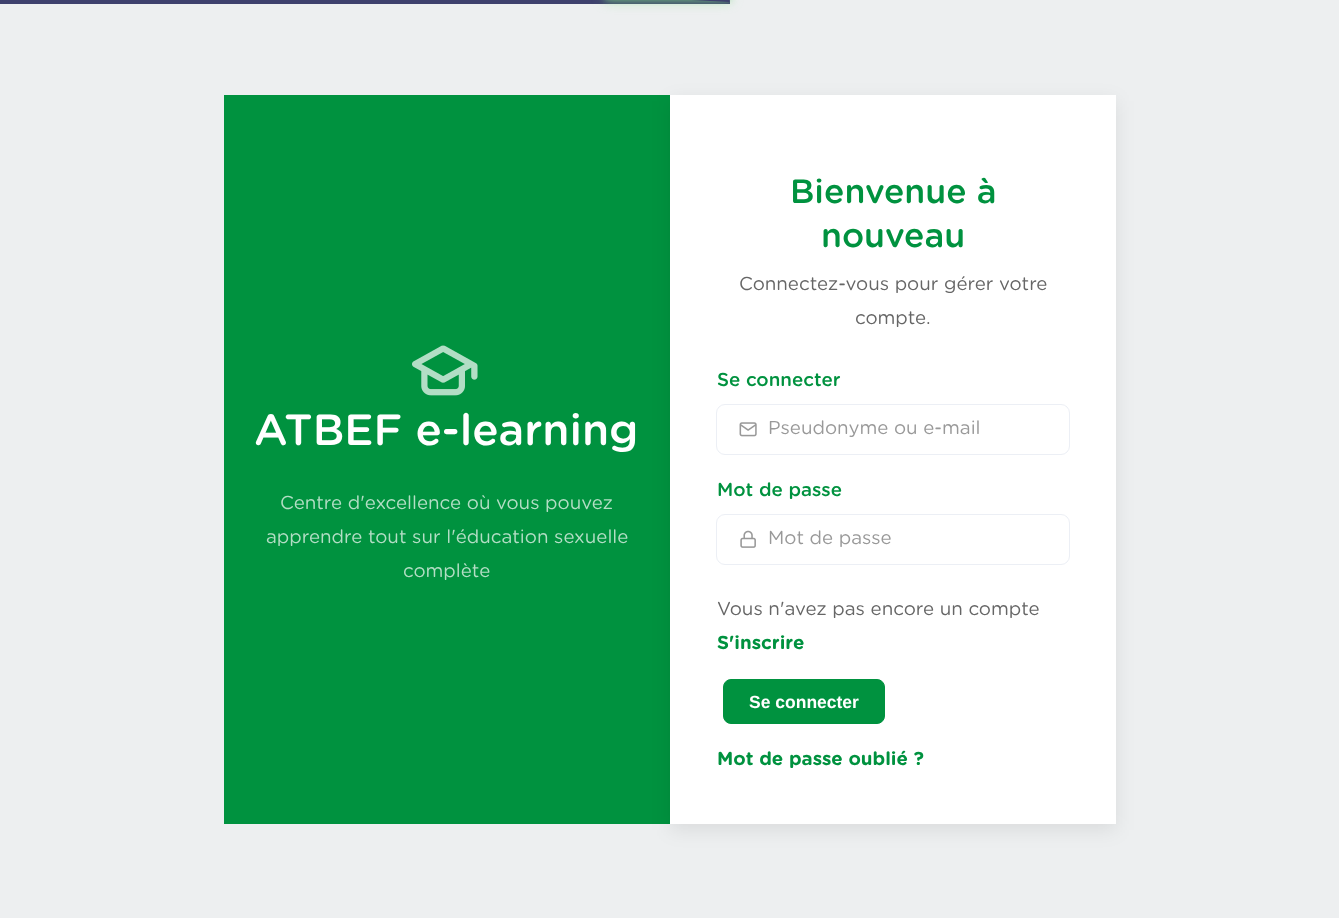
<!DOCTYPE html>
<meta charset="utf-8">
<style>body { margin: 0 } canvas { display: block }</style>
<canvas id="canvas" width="1339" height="918"></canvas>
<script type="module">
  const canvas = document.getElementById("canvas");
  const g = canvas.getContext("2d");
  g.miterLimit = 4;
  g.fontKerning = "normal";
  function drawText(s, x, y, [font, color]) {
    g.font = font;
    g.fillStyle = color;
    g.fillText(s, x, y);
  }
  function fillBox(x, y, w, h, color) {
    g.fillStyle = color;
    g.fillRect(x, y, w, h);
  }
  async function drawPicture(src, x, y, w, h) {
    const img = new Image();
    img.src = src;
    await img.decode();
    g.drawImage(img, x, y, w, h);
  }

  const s1 = ["500 43.75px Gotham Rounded", "#FFFFFF"];
  const s2 = ["18.75px Gotham Rounded", "#B3DEC5"];
  const s3 = ["500 33.75px Gotham Rounded", "#00923F"];
  const s4 = ["18.75px Gotham Rounded", "#666666"];
  const s5 = ["500 18.75px Gotham Rounded", "#00923F"];
  const s6 = ["18.75px Gotham Rounded", "#999999"];
  const s7 = ["bold 18.75px Gotham Rounded", "#00923F"];
  const s8 = ["bold 17.5px Liberation Sans", "#FFFFFF"];

  fillBox(0, 0, 1339, 918, "#EDEFF0");
  fillBox(0, 0, 730, 4, "#3E416D");
  g.save();
  g.beginPath();
  g.moveTo(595, 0);
  g.lineTo(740, 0);
  g.lineTo(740, 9);
  g.lineTo(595, 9);
  g.closePath();
  g.moveTo(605, -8.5);
  g.lineTo(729.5, -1.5);
  g.lineTo(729.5, 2);
  g.lineTo(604.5, -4.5);
  g.closePath();
  g.clip("evenodd");
  g.fillStyle = "#8BCA90";
  g.filter = "blur(3px)";
  g.beginPath();
  g.rect(605, -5, 125, 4);
  g.fill();
  g.filter = "none";
  g.restore();
  g.save();
  g.beginPath();
  g.moveTo(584, 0);
  g.lineTo(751, 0);
  g.lineTo(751, 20);
  g.lineTo(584, 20);
  g.closePath();
  g.moveTo(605, -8.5);
  g.lineTo(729.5, -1.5);
  g.lineTo(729.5, 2);
  g.lineTo(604.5, -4.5);
  g.closePath();
  g.clip("evenodd");
  g.fillStyle = "#6DE877";
  g.filter = "blur(6.5px)";
  g.beginPath();
  g.rect(605, -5, 125, 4);
  g.fill();
  g.filter = "none";
  g.restore();
  fillBox(224, 95, 446, 729, "#00923F");
  await drawPicture("pic1.png", 412, 345, 66, 51);
  drawText("ATBEF e-learning", 254, 445, s1);
  drawText("Centre d'excellence où vous pouvez", 280, 509, s2);
  drawText("apprendre tout sur l'éducation sexuelle", 266, 543, s2);
  drawText("complète", 403, 577, s2);
  g.fillStyle = "rgba(0, 0, 0, 0.08)";
  g.filter = "blur(9.5px)";
  g.beginPath();
  g.rect(670, 101, 446, 729);
  g.fill();
  g.filter = "none";
  fillBox(670, 95, 446, 729, "#FFFFFF");
  drawText("Bienvenue à", 790, 203, s3);
  drawText("nouveau", 821, 247, s3);
  drawText("Connectez-vous pour gérer votre", 739, 290, s4);
  drawText("compte.", 855, 324, s4);
  drawText("Se connecter", 717, 386, s5);
  g.beginPath();
  g.roundRect(716.5, 404.5, 353, 50, 8.5);
  g.strokeStyle = "#ECEFF5";
  g.stroke();
  await drawPicture("pic2.png", 739, 422, 18, 15);
  drawText("Pseudonyme ou e-mail", 768, 434, s6);
  drawText("Mot de passe", 717, 496, s5);
  g.beginPath();
  g.roundRect(716.5, 514.5, 353, 50, 8.5);
  g.stroke();
  await drawPicture("pic3.png", 740, 530, 16, 18);
  drawText("Mot de passe", 768, 544, s6);
  drawText("Vous n'avez pas encore un compte", 717, 615, s4);
  drawText("S'inscrire", 717, 649, s7);
  g.beginPath();
  g.roundRect(723.5, 679.5, 161, 44, 7.5);
  g.fill();
  g.strokeStyle = "#00923F";
  g.stroke();
  drawText("Se connecter", 749, 708, s8);
  drawText("Mot de passe oublié ?", 717, 765, s7);
</script>
